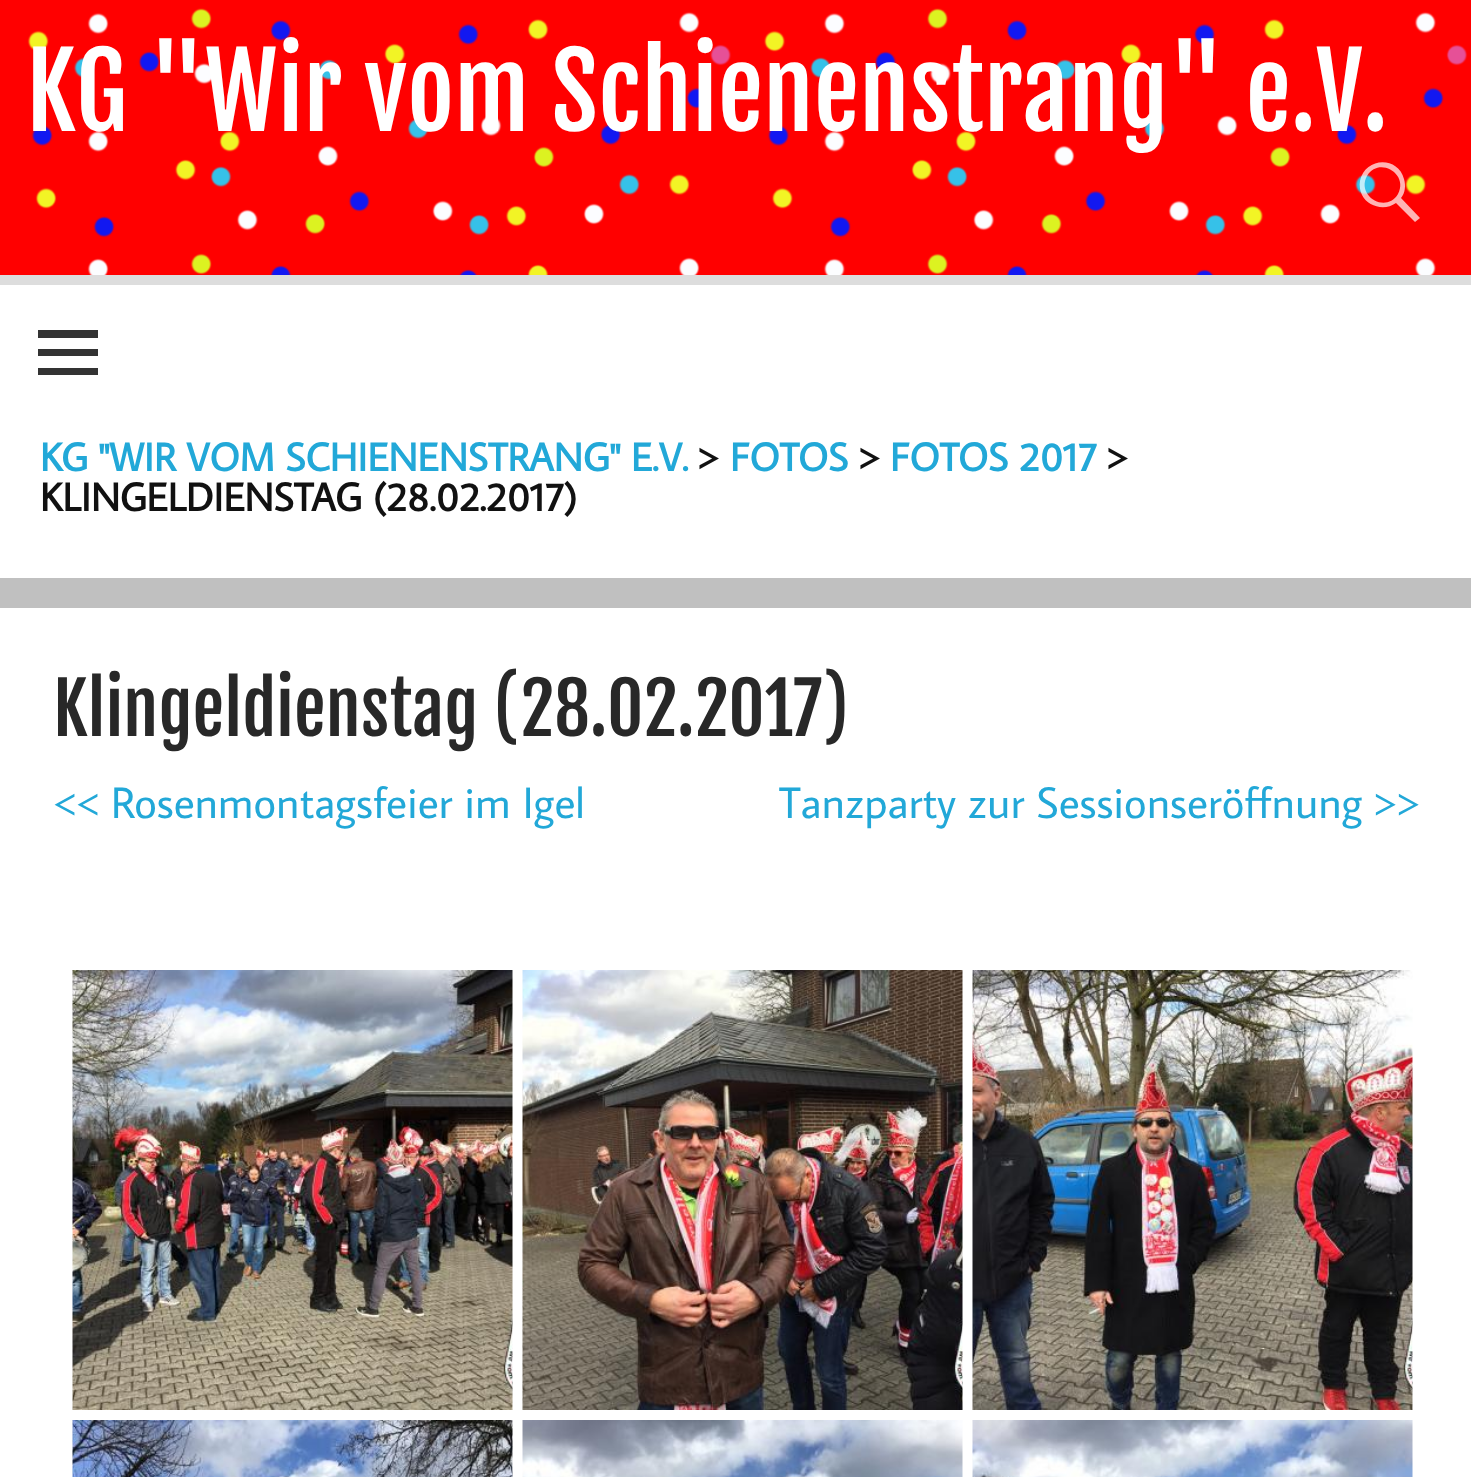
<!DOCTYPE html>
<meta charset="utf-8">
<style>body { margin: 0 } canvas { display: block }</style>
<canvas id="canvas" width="1471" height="1477"></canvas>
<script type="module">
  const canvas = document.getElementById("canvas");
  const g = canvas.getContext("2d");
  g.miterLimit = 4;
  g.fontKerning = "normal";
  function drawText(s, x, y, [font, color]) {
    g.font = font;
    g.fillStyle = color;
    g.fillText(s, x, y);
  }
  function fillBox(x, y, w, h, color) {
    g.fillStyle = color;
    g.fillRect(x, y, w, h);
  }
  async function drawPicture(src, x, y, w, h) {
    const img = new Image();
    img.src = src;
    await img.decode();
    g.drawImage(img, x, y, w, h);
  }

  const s1 = ["101.25px Fjalla One", "#FFFFFF"];
  const s2 = ["bold 39.6px Average Sans", "#22A8D8"];
  const s3 = ["bold 39.6px Average Sans", "#111111"];
  const s4 = ["70.4px Fjalla One", "#282828"];
  const s5 = ["44px Average Sans", "#22A8D8"];

  fillBox(0, 0, 1471, 1477, "#C0C0C0");
  fillBox(0, 0, 1471, 275, "#FF0000");
  await drawPicture("pic1.png", 27, 8, 1441, 267);
  drawText("KG \"Wir vom Schienenstrang\" e.V.", 26, 131, s1);
  g.fillStyle = "rgba(255, 255, 255, 0.7)";
  g.beginPath();
  g.moveTo(1420, 218);
  g.lineTo(1415, 222);
  g.lineTo(1396, 203);
  g.bezierCurveTo(1385, 211, 1368, 207, 1362, 195);
  g.bezierCurveTo(1360, 191, 1359, 185, 1360, 181);
  g.bezierCurveTo(1365, 157, 1398, 156, 1404, 179);
  g.bezierCurveTo(1406, 186, 1405, 193, 1401, 198);
  g.closePath();
  g.moveTo(1367, 176);
  g.bezierCurveTo(1356, 196, 1386, 214, 1398, 194);
  g.bezierCurveTo(1409, 174, 1379, 156, 1367, 176);
  g.closePath();
  g.fill();
  fillBox(0, 285, 1471, 293, "#FFFFFF");
  fillBox(0, 275, 1471, 10, "#DDDDDD");
  g.fillStyle = "#333333";
  g.beginPath();
  g.moveTo(38, 375);
  g.lineTo(38, 368);
  g.lineTo(98, 368);
  g.lineTo(98, 375);
  g.closePath();
  g.moveTo(38, 330);
  g.lineTo(98, 330);
  g.lineTo(98, 338);
  g.lineTo(38, 338);
  g.closePath();
  g.moveTo(38, 356);
  g.lineTo(38, 349);
  g.lineTo(98, 349);
  g.lineTo(98, 356);
  g.closePath();
  g.fill();
  drawText("KG \"WIR VOM SCHIENENSTRANG\" E.V.", 40, 471, s2);
  drawText(">", 698, 471, s3);
  drawText("FOTOS", 730, 471, s2);
  drawText(">", 859, 471, s3);
  drawText("FOTOS 2017", 890, 471, s2);
  drawText(">", 1107, 471, s3);
  drawText("KLINGELDIENSTAG (28.02.2017)", 40, 511, s3);
  fillBox(0, 608, 1471, 869, "#FFFFFF");
  drawText("Klingeldienstag (28.02.2017)", 53, 736, s4);
  drawText("<< Rosenmontagsfeier im Igel", 53, 818, s5);
  drawText("Tanzparty zur Sessionseröffnung >>", 779, 818, s5);
  await drawPicture("pic2.png", 72, 970, 441, 440);
  await drawPicture("pic3.png", 522, 970, 441, 440);
  await drawPicture("pic4.png", 972, 970, 441, 440);
  await drawPicture("pic5.png", 72, 1420, 441, 57);
  await drawPicture("pic6.png", 522, 1420, 441, 57);
  await drawPicture("pic7.png", 972, 1420, 441, 57);
</script>
